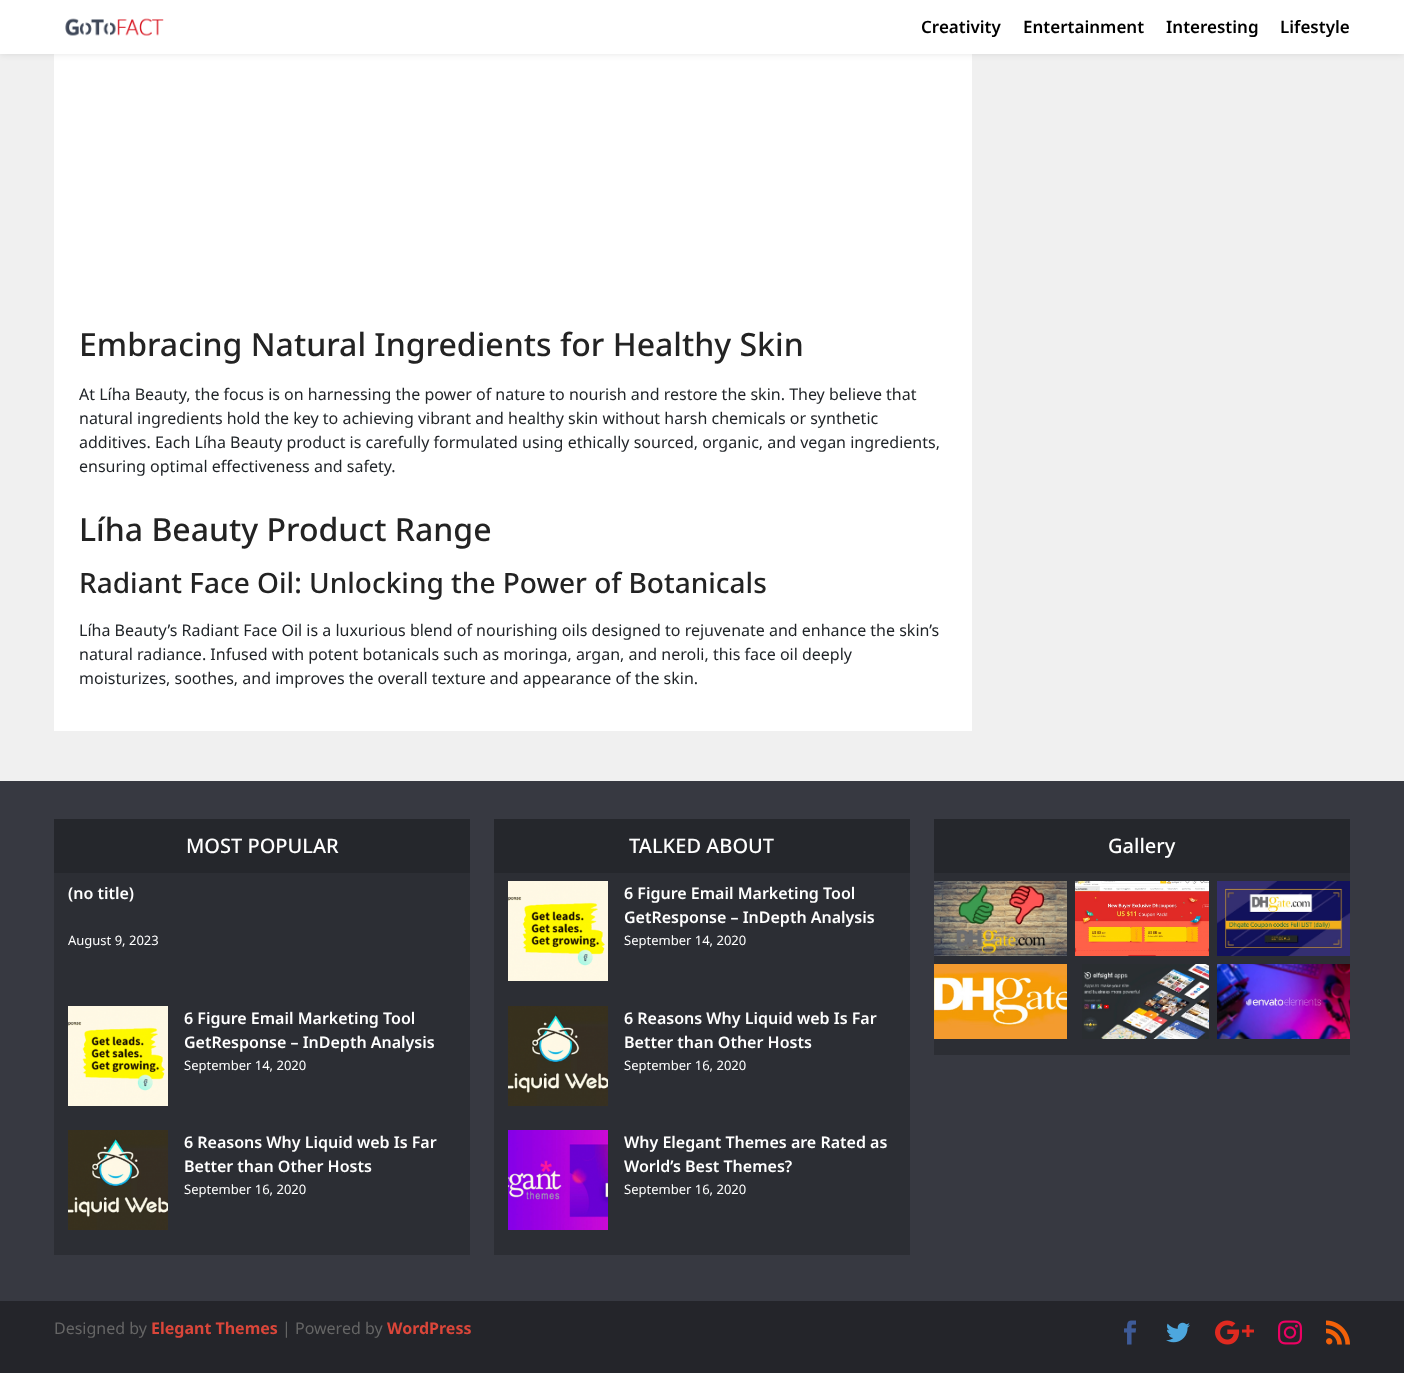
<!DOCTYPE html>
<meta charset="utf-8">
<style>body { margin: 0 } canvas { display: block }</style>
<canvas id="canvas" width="1404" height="1373"></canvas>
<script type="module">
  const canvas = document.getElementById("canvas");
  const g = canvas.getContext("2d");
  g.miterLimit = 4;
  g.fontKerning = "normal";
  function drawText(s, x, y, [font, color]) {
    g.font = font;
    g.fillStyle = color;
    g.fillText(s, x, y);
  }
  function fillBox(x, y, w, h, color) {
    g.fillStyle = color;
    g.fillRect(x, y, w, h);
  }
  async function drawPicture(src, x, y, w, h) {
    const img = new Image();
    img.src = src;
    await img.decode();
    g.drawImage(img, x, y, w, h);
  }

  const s1 = ["600 17px Noto Sans", "#000000"];
  const s2 = ["500 32px Noto Sans", "#232323"];
  const s3 = ["16px Noto Sans", "#212529"];
  const s4 = ["500 28px Noto Sans", "#232323"];
  const s5 = ["500 20px Noto Sans", "#FFFFFF"];
  const s6 = ["600 16px Noto Sans", "#FFFFFF"];
  const s7 = ["13px Noto Sans", "#FFFFFF"];
  const s8 = ["16px Noto Sans", "#666666"];
  const s9 = ["bold 16px Noto Sans", "#DA463A"];

  fillBox(0, 0, 1404, 1373, "#F0F0F0");
  fillBox(54, 54, 918, 677, "#FFFFFF");
  g.fillStyle = "rgba(0, 0, 0, 0.1)";
  g.filter = "blur(3.5px)";
  g.beginPath();
  g.rect(0, 0, 1404, 54);
  g.fill();
  g.filter = "none";
  fillBox(0, 0, 1404, 54, "#FFFFFF");
  await drawPicture("pic1.png", 65, 18, 99, 18);
  drawText("Creativity", 921, 33, s1);
  drawText("Entertainment", 1023, 33, s1);
  drawText("Interesting", 1166, 33, s1);
  drawText("Lifestyle", 1280, 33, s1);
  drawText("Embracing Natural Ingredients for Healthy Skin", 79, 356, s2);
  drawText("At Líha Beauty, the focus is on harnessing the power of nature to nourish and restore the skin. They believe that", 79, 400, s3);
  drawText("natural ingredients hold the key to achieving vibrant and healthy skin without harsh chemicals or synthetic", 79, 424, s3);
  drawText("additives. Each Líha Beauty product is carefully formulated using ethically sourced, organic, and vegan ingredients,", 79, 448, s3);
  drawText("ensuring optimal effectiveness and safety.", 79, 472, s3);
  drawText("Líha Beauty Product Range", 79, 541, s2);
  drawText("Radiant Face Oil: Unlocking the Power of Botanicals", 79, 593, s4);
  drawText("Líha Beauty’s Radiant Face Oil is a luxurious blend of nourishing oils designed to rejuvenate and enhance the skin’s", 79, 636, s3);
  drawText("natural radiance. Infused with potent botanicals such as moringa, argan, and neroli, this face oil deeply", 79, 660, s3);
  drawText("moisturizes, soothes, and improves the overall texture and appearance of the skin.", 79, 684, s3);
  fillBox(0, 781, 1404, 520, "#373941");
  fillBox(54, 873, 416, 382, "#2C2E34");
  fillBox(54, 819, 416, 54, "#25272C");
  drawText("MOST POPULAR", 186, 853, s5);
  drawText("(no title)", 68, 899, s6);
  drawText("August 9, 2023", 68, 945, s7);
  await drawPicture("pic2.png", 68, 1006, 100, 100);
  drawText("6 Figure Email Marketing Tool", 184, 1024, s6);
  drawText("GetResponse – InDepth Analysis", 184, 1048, s6);
  drawText("September 14, 2020", 184, 1070, s7);
  await drawPicture("pic3.png", 68, 1130, 100, 100);
  drawText("6 Reasons Why Liquid web Is Far", 184, 1148, s6);
  drawText("Better than Other Hosts", 184, 1172, s6);
  drawText("September 16, 2020", 184, 1194, s7);
  fillBox(494, 873, 416, 382, "#2C2E34");
  fillBox(494, 819, 416, 54, "#25272C");
  drawText("TALKED ABOUT", 629, 853, s5);
  await drawPicture("pic2.png", 508, 881, 100, 100);
  drawText("6 Figure Email Marketing Tool", 624, 899, s6);
  drawText("GetResponse – InDepth Analysis", 624, 923, s6);
  drawText("September 14, 2020", 624, 945, s7);
  await drawPicture("pic3.png", 508, 1006, 100, 100);
  drawText("6 Reasons Why Liquid web Is Far", 624, 1024, s6);
  drawText("Better than Other Hosts", 624, 1048, s6);
  drawText("September 16, 2020", 624, 1070, s7);
  await drawPicture("pic4.png", 508, 1130, 100, 100);
  drawText("Why Elegant Themes are Rated as", 624, 1148, s6);
  drawText("World’s Best Themes?", 624, 1172, s6);
  drawText("September 16, 2020", 624, 1194, s7);
  fillBox(934, 873, 416, 182, "#2C2E34");
  fillBox(934, 819, 416, 54, "#25272C");
  drawText("Gallery", 1108, 853, s5);
  await drawPicture("pic5.png", 934, 881, 133, 75);
  await drawPicture("pic6.png", 1075, 881, 134, 75);
  await drawPicture("pic7.png", 1217, 881, 133, 75);
  await drawPicture("pic8.png", 934, 964, 133, 75);
  await drawPicture("pic9.png", 1082, 964, 127, 75);
  await drawPicture("pic10.png", 1217, 964, 133, 75);
  fillBox(0, 1301, 1404, 72, "#24252A");
  drawText("Designed by", 54, 1334, s8);
  drawText("Elegant Themes", 151, 1334, s9);
  drawText("| Powered by", 282, 1334, s8);
  drawText("WordPress", 387, 1334, s9);
  await drawPicture("pic11.png", 1124, 1320, 12, 25);
  await drawPicture("pic12.png", 1166, 1322, 24, 21);
  await drawPicture("pic13.png", 1215, 1320, 39, 25);
  await drawPicture("pic14.png", 1278, 1320, 24, 25);
  await drawPicture("pic15.png", 1326, 1320, 24, 25);
</script>
